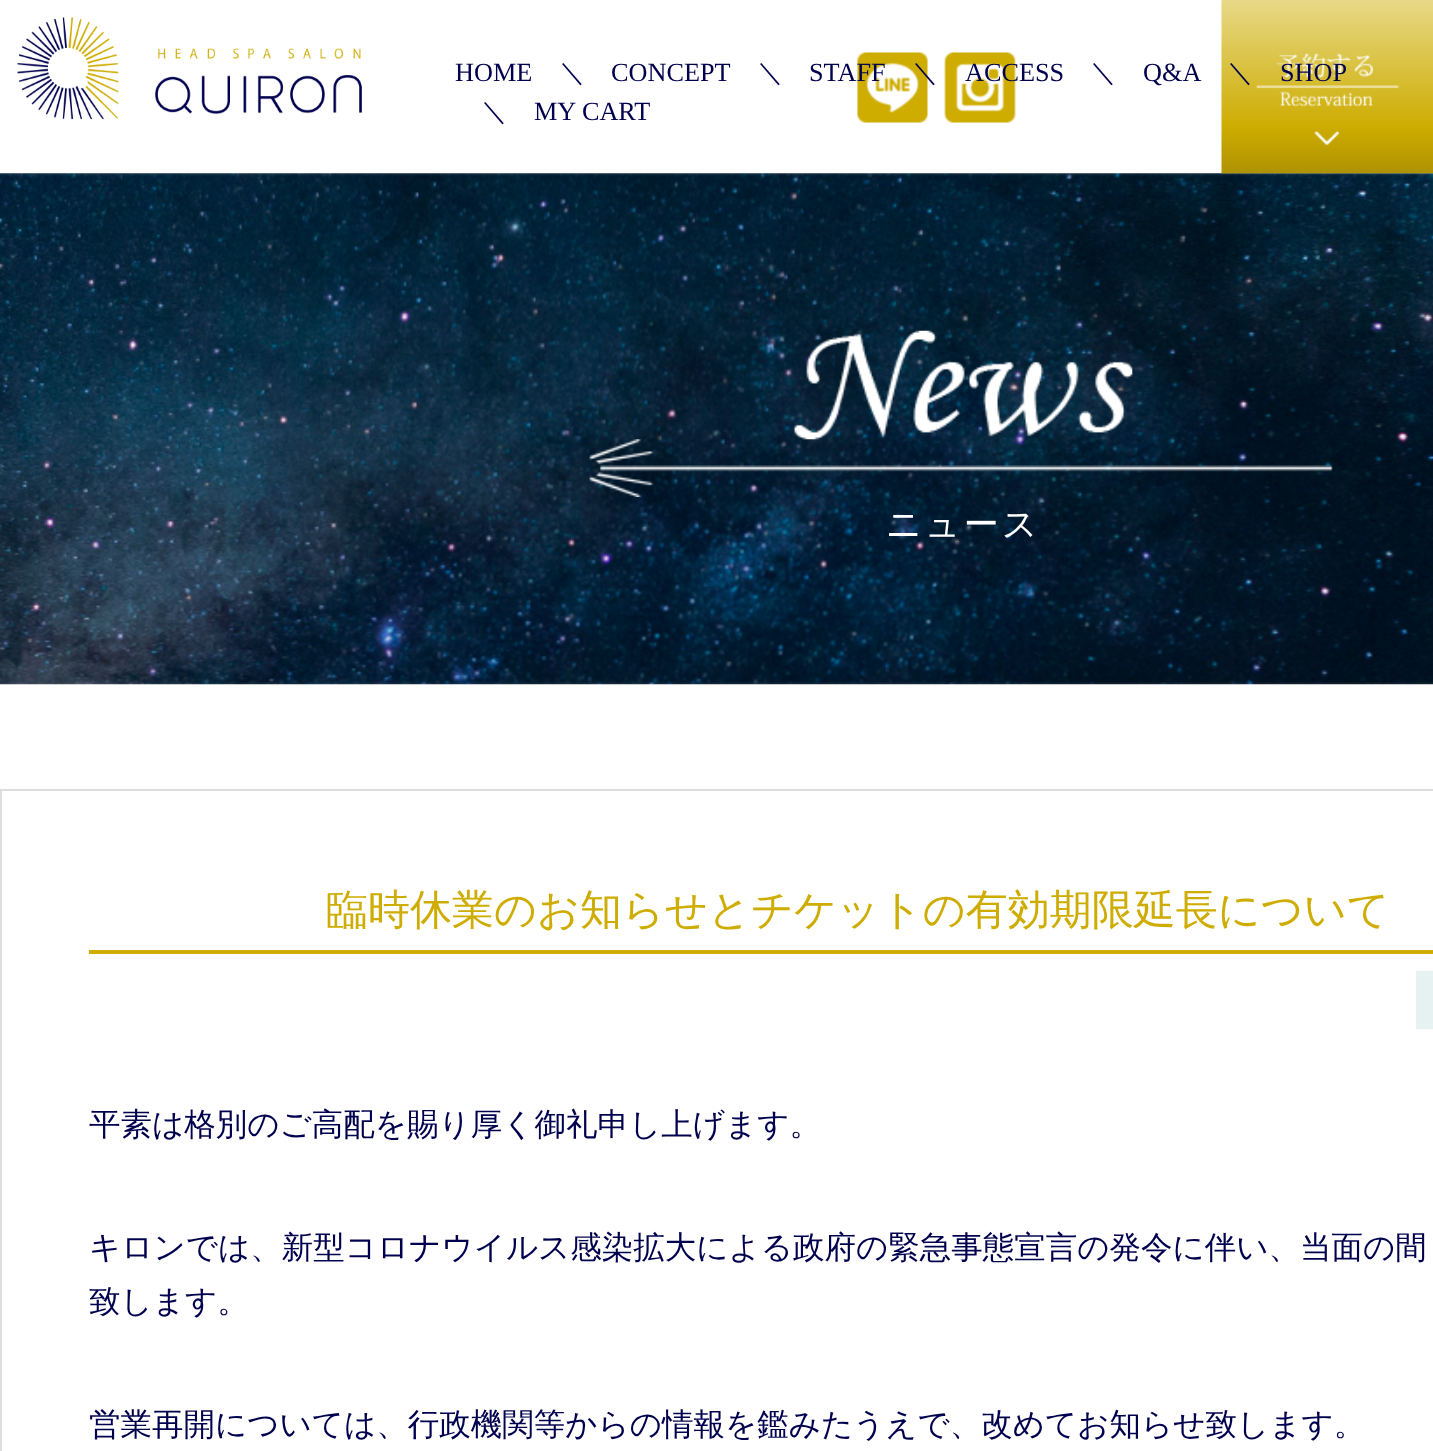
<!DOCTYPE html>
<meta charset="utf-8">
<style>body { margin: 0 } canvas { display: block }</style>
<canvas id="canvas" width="1433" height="1451"></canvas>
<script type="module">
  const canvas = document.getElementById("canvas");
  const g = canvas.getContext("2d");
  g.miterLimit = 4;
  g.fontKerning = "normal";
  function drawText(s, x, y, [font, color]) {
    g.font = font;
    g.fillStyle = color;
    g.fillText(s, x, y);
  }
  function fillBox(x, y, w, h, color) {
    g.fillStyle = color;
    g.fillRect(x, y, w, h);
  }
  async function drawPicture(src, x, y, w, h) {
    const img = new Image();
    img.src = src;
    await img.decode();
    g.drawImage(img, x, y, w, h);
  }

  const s1 = ["26.25px Liberation Serif", "#00004E"];
  const s2 = ["500 26.25px WenQuanYi Zen Hei", "#00004E"];
  const s3 = ["500 35px WenQuanYi Zen Hei", "#FFFFFF"];
  const s4 = ["500 42px WenQuanYi Zen Hei", "#CEAC00"];
  const s5 = ["500 31.5px WenQuanYi Zen Hei", "#00004E"];

  fillBox(0, 0, 1433, 1451, "#FFFFFF");
  await drawPicture("pic1.png", 17, 17, 345, 103);
  await drawPicture("pic2.png", 857, 52, 71, 71);
  await drawPicture("pic3.png", 944, 52, 72, 71);
  await drawPicture("pic5.png", 0, 173, 1433, 512);
  await drawPicture("pic4.png", 1221, 0, 212, 174);
  drawText("HOME", 455, 81, s1);
  drawText("＼", 559, 81, s2);
  drawText("CONCEPT", 611, 81, s1);
  drawText("＼", 757, 81, s2);
  drawText("STAFF", 809, 81, s1);
  drawText("＼", 912, 81, s2);
  drawText("ACCESS", 965, 81, s1);
  drawText("＼", 1090, 81, s2);
  drawText("Q&A", 1143, 81, s1);
  drawText("＼", 1227, 81, s2);
  drawText("SHOP", 1280, 81, s1);
  drawText("＼", 481, 120, s2);
  drawText("MY CART", 534, 120, s1);
  await drawPicture("pic6.png", 589, 439, 744, 58);
  await drawPicture("pic7.png", 794, 330, 339, 110);
  g.letterSpacing = "3px";
  drawText("ニュース", 886, 536, s3);
  g.strokeStyle = "#DDDDDD";
  g.lineWidth = 2;
  g.strokeRect(1, 790, 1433, 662);
  fillBox(89, 950, 1344, 4, "#CEAC00");
  g.letterSpacing = "0px";
  drawText("臨時休業のお知らせとチケットの有効期限延長について", 326, 924, s4);
  fillBox(1416, 971, 17, 58, "#E6F1F1");
  drawText("平素は格別のご高配を賜り厚く御礼申し上げます。", 89, 1135, s5);
  drawText("キロンでは、新型コロナウイルス感染拡大による政府の緊急事態宣言の発令に伴い、当面の間", 89, 1258, s5);
  drawText("致します。", 89, 1312, s5);
  drawText("営業再開については、行政機関等からの情報を鑑みたうえで、改めてお知らせ致します。", 89, 1435, s5);
</script>
